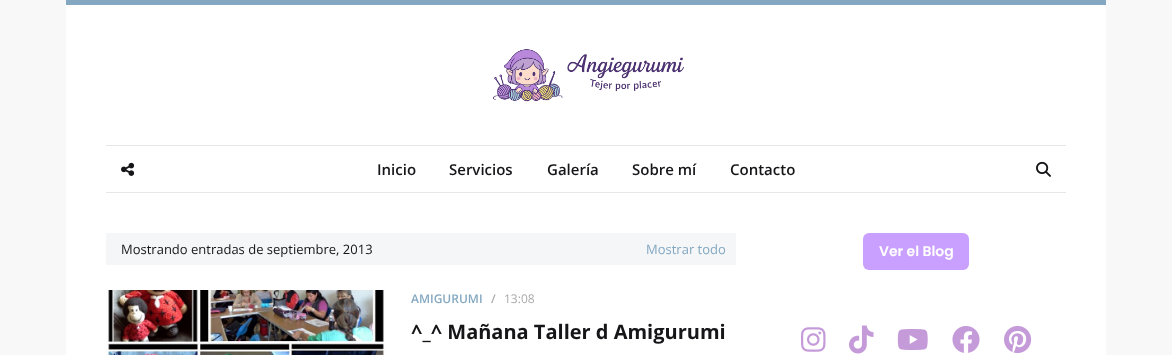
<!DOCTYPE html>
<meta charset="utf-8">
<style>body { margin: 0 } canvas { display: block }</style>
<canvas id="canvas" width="1172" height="355"></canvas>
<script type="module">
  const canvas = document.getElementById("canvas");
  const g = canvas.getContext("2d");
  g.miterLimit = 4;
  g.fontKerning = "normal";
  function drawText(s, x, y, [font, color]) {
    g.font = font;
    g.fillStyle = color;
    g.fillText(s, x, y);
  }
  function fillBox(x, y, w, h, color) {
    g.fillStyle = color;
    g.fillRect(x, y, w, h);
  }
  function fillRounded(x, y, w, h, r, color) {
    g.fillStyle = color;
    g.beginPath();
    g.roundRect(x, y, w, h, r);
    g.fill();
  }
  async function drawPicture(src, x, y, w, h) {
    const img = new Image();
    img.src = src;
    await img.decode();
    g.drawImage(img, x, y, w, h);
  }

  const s1 = ["600 15px Open Sans", "#161619"];
  const s2 = ["13px Open Sans", "#161619"];
  const s3 = ["13px Open Sans", "#84A8C1"];
  const s4 = ["600 12px Open Sans", "#84A8C1"];
  const s5 = ["600 12px Open Sans", "#AAAAAA"];
  const s6 = ["12px Open Sans", "#AAAAAA"];
  const s7 = ["bold 20px Open Sans", "#161619"];
  const s8 = ["600 14px Poppins", "#FFFFFF"];

  fillBox(0, 0, 1172, 355, "#F8F8F8");
  fillBox(66, 5, 1040, 350, "#FFFFFF");
  fillBox(66, 0, 1040, 5, "#84A8C1");
  await drawPicture("pic1.png", 493, 49, 191, 53);
  fillBox(106, 145, 960, 1, "#E7E7E7");
  fillBox(106, 192, 960, 1, "#E7E7E7");
  await drawPicture("pic2.png", 121, 162, 14, 14);
  drawText("Inicio", 377, 175, s1);
  drawText("Servicios", 449, 175, s1);
  drawText("Galería", 547, 175, s1);
  drawText("Sobre mí", 632, 175, s1);
  drawText("Contacto", 730, 175, s1);
  await drawPicture("pic3.png", 1036, 161, 15, 16);
  fillBox(106, 233, 630, 32, "#F4F6F8");
  drawText("Mostrando entradas de septiembre, 2013", 121, 254, s2);
  drawText("Mostrar todo", 646, 254, s3);
  await drawPicture("pic4.png", 106, 290, 280, 65);
  drawText("AMIGURUMI", 411, 303, s4);
  drawText("/", 491, 303, s5);
  drawText("13:08", 504, 303, s6);
  drawText("^_^ Mañana Taller d Amigurumi", 411, 339, s7);
  fillRounded(863, 233, 106, 37, 6, "#C9A0FF");
  drawText("Ver el Blog", 879, 256, s8);
  await drawPicture("pic5.png", 801, 327, 25, 25);
  await drawPicture("pic6.png", 849, 325, 25, 29);
  await drawPicture("pic7.png", 897, 329, 31, 21);
  await drawPicture("pic8.png", 952, 326, 28, 27);
  await drawPicture("pic9.png", 1004, 325, 28, 29);
</script>
